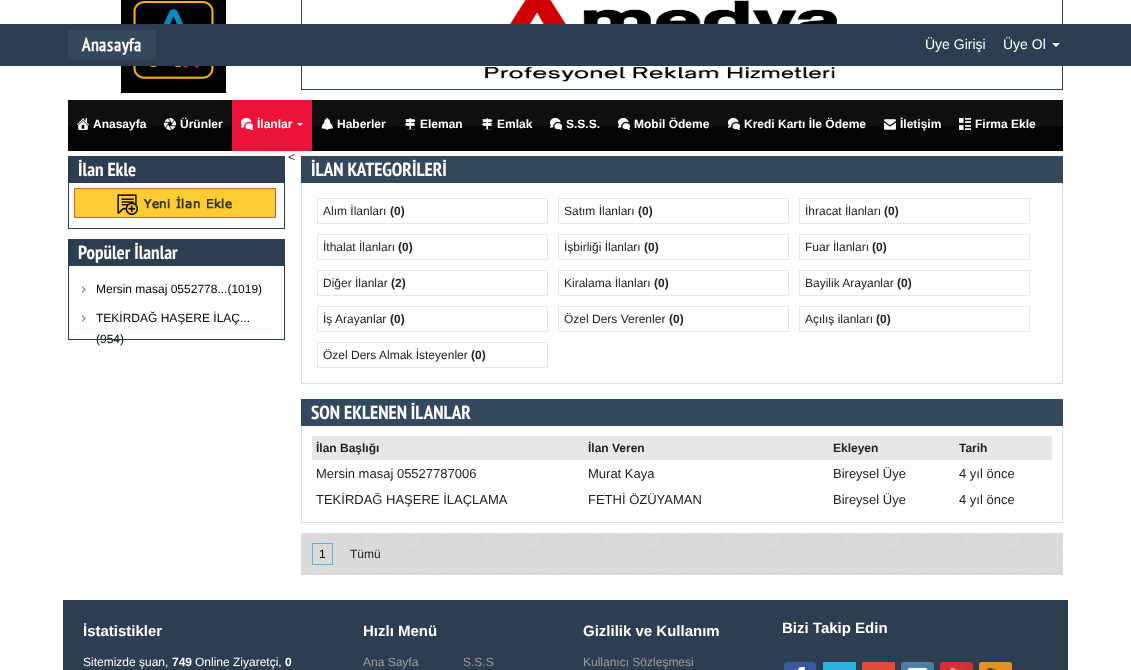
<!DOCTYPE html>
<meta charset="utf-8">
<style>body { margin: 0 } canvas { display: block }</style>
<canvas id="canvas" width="1131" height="670"></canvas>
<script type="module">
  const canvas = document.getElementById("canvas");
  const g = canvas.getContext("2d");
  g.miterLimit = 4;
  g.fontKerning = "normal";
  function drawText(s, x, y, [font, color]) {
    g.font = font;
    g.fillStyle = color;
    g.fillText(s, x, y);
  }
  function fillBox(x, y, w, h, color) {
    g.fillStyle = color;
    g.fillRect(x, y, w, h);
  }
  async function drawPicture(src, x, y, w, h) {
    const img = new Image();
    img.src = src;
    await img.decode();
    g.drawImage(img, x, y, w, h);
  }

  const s1 = ["14px Liberation Sans", "#FFFFFF"];
  const s2 = ["bold 12px Liberation Sans", "#FFFFFF"];
  const s3 = ["12px Liberation Sans", "#222222"];
  const s4 = ["bold 19px PT Sans Narrow", "#FFFFFF"];
  const s5 = ["12px Liberation Sans", "#000000"];
  const s6 = ["bold 12px Liberation Sans", "#222222"];
  const s7 = ["13px Liberation Sans", "#222222"];
  const s8 = ["bold 15px Liberation Sans", "#FFFFFF"];
  const s9 = ["12px Liberation Sans", "#FFFFFF"];
  const s10 = ["12px Liberation Sans", "#9E9E9E"];

  fillBox(0, 0, 1131, 670, "#FFFFFF");
  await drawPicture("pic2.png", 121, 0, 105, 93);
  g.strokeStyle = "#2C3E50";
  g.strokeRect(301.5, -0.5, 761, 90);
  await drawPicture("pic3.png", 485, 0, 353, 82);
  fillBox(0, 24, 1131, 42, "#2C3E50");
  await drawPicture("pic1.png", 68, 30, 88, 30);
  drawText("Üye Girişi", 925, 49, s1);
  drawText("Üye Ol", 1003, 49, s1);
  g.beginPath();
  g.moveTo(1052, 43);
  g.lineTo(1060, 43);
  g.lineTo(1056, 47);
  g.closePath();
  g.fill();
  fillBox(1045, 126, 18, 25, "#050505");
  fillBox(1045, 100, 18, 26, "#0F0F0F");
  fillBox(68, 126, 164, 25, "#050505");
  fillBox(68, 100, 164, 26, "#0F0F0F");
  await drawPicture("pic4.png", 77, 118, 12, 12);
  drawText("Anasayfa", 93, 128, s2);
  await drawPicture("pic5.png", 164, 118, 12, 12);
  drawText("Ürünler", 180, 128, s2);
  fillBox(232, 100, 80, 51, "#EC1339");
  await drawPicture("pic6.png", 241, 118, 12, 12);
  drawText("İlanlar", 257, 128, s2);
  g.beginPath();
  g.moveTo(297, 123);
  g.lineTo(303, 123);
  g.lineTo(300, 126);
  g.closePath();
  g.fill();
  fillBox(312, 126, 733, 25, "#050505");
  fillBox(312, 100, 733, 26, "#0F0F0F");
  await drawPicture("pic7.png", 321, 118, 12, 12);
  drawText("Haberler", 337, 128, s2);
  await drawPicture("pic8.png", 405, 118, 11, 12);
  drawText("Eleman", 420, 128, s2);
  await drawPicture("pic8.png", 482, 118, 11, 12);
  drawText("Emlak", 497, 128, s2);
  await drawPicture("pic9.png", 550, 118, 12, 12);
  drawText("S.S.S.", 566, 128, s2);
  await drawPicture("pic9.png", 618, 118, 12, 12);
  drawText("Mobil Ödeme", 634, 128, s2);
  await drawPicture("pic9.png", 728, 118, 12, 12);
  drawText("Kredi Kartı İle Ödeme", 744, 128, s2);
  await drawPicture("pic10.png", 884, 119, 12, 11);
  drawText("İletişim", 900, 128, s2);
  await drawPicture("pic11.png", 959, 118, 12, 12);
  drawText("Firma Ekle", 975, 128, s2);
  drawText("<", 288, 161, s3);
  fillBox(68, 156, 217, 27, "#2C3E50");
  drawText("İlan Ekle", 78, 176, s4);
  fillBox(284, 183, 1, 46, "#2C3E50");
  fillBox(68, 183, 1, 40, "#2C3E50");
  await drawPicture("pic12.png", 74, 188, 202, 30);
  fillBox(68, 228, 217, 1, "#2C3E50");
  fillBox(68, 223, 1, 6, "#2C3E50");
  fillBox(68, 239, 217, 27, "#2C3E50");
  drawText("Popüler İlanlar", 78, 259, s4);
  fillBox(284, 266, 1, 74, "#2C3E50");
  fillBox(68, 266, 1, 68, "#2C3E50");
  await drawPicture("pic13.png", 82, 286, 4, 7);
  g.beginPath();
  g.moveTo(74, 299.5);
  g.lineTo(274, 299.5);
  g.strokeStyle = "#EDEDED";
  g.setLineDash([1, 1]);
  g.stroke();
  drawText("Mersin masaj 0552778...(1019)", 96, 293, s5);
  await drawPicture("pic13.png", 82, 315, 4, 7);
  g.beginPath();
  g.moveTo(74, 328.5);
  g.lineTo(274, 328.5);
  g.stroke();
  drawText("TEKİRDAĞ HAŞERE İLAÇ...", 96, 322, s5);
  drawText("(954)", 96, 343, s5);
  fillBox(68, 339, 217, 1, "#2C3E50");
  fillBox(68, 334, 1, 6, "#2C3E50");
  fillBox(301, 156, 762, 27, "#34495E");
  drawText("İLAN KATEGORİLERİ", 311, 176, s4);
  fillBox(1062, 183, 1, 201, "#DDDDDD");
  fillBox(301, 383, 762, 1, "#DDDDDD");
  fillBox(301, 183, 1, 201, "#DDDDDD");
  g.strokeStyle = "#E7E7E7";
  g.setLineDash([]);
  g.strokeRect(317.5, 198.5, 230, 25);
  drawText("Alım İlanları", 323, 215, s3);
  drawText("(0)", 390, 215, s6);
  g.strokeRect(558.5, 198.5, 230, 25);
  drawText("Satım İlanları", 564, 215, s3);
  drawText("(0)", 638, 215, s6);
  g.strokeRect(799.5, 198.5, 230, 25);
  drawText("İhracat İlanları", 805, 215, s3);
  drawText("(0)", 884, 215, s6);
  g.strokeRect(317.5, 234.5, 230, 25);
  drawText("İthalat İlanları", 323, 251, s3);
  drawText("(0)", 398, 251, s6);
  g.strokeRect(558.5, 234.5, 230, 25);
  drawText("İşbirliği İlanları", 564, 251, s3);
  drawText("(0)", 644, 251, s6);
  g.strokeRect(799.5, 234.5, 230, 25);
  drawText("Fuar İlanları", 805, 251, s3);
  drawText("(0)", 872, 251, s6);
  g.strokeRect(317.5, 270.5, 230, 25);
  drawText("Diğer İlanlar", 323, 287, s3);
  drawText("(2)", 391, 287, s6);
  g.strokeRect(558.5, 270.5, 230, 25);
  drawText("Kiralama İlanları", 564, 287, s3);
  drawText("(0)", 654, 287, s6);
  g.strokeRect(799.5, 270.5, 230, 25);
  drawText("Bayilik Arayanlar", 805, 287, s3);
  drawText("(0)", 897, 287, s6);
  g.strokeRect(317.5, 306.5, 230, 25);
  drawText("İş Arayanlar", 323, 323, s3);
  drawText("(0)", 390, 323, s6);
  g.strokeRect(558.5, 306.5, 230, 25);
  drawText("Özel Ders Verenler", 564, 323, s3);
  drawText("(0)", 669, 323, s6);
  g.strokeRect(799.5, 306.5, 230, 25);
  drawText("Açılış ilanları", 805, 323, s3);
  drawText("(0)", 876, 323, s6);
  g.strokeRect(317.5, 342.5, 230, 25);
  drawText("Özel Ders Almak İsteyenler", 323, 359, s3);
  drawText("(0)", 471, 359, s6);
  fillBox(301, 399, 762, 27, "#34495E");
  drawText("SON EKLENEN İLANLAR", 311, 419, s4);
  fillBox(1062, 426, 1, 97, "#DDDDDD");
  fillBox(301, 522, 762, 1, "#DDDDDD");
  fillBox(301, 426, 1, 97, "#DDDDDD");
  fillBox(312, 436, 740, 24, "#E7E7E7");
  drawText("İlan Başlığı", 316, 452, s6);
  drawText("İlan Veren", 588, 452, s6);
  drawText("Ekleyen", 833, 452, s6);
  drawText("Tarih", 959, 452, s6);
  drawText("Mersin masaj 05527787006", 316, 478, s7);
  drawText("Murat Kaya", 588, 478, s7);
  drawText("Bireysel Üye", 833, 478, s7);
  fillBox(1052, 460, 1, 1, "#DDDDDD");
  drawText("4 yıl önce", 959, 478, s7);
  drawText("TEKİRDAĞ HAŞERE İLAÇLAMA", 316, 504, s7);
  drawText("FETHİ ÖZÜYAMAN", 588, 504, s7);
  drawText("Bireysel Üye", 833, 504, s7);
  fillBox(1052, 486, 1, 1, "#DDDDDD");
  drawText("4 yıl önce", 959, 504, s7);
  await drawPicture("pic14.png", 302, 534, 760, 40);
  g.strokeStyle = "#DED8D8";
  g.strokeRect(301.5, 533.5, 761, 41);
  g.strokeStyle = "#51B8E8";
  g.strokeRect(312.5, 543.5, 20, 21);
  drawText("1", 319, 558, s5);
  drawText("Tümü", 350, 558, s3);
  fillBox(63, 600, 1005, 70, "#2C3E50");
  drawText("İstatistikler", 83, 636, s8);
  drawText("Sitemizde şuan,", 83, 666, s9);
  drawText("749", 172, 666, s2);
  drawText("Online Ziyaretçi,", 195, 666, s9);
  drawText("0", 285, 666, s2);
  drawText("Hızlı Menü", 363, 636, s8);
  drawText("Ana Sayfa", 363, 666, s10);
  drawText("S.S.S", 463, 666, s10);
  drawText("Gizlilik ve Kullanım", 583, 636, s8);
  drawText("Kullanıcı Sözleşmesi", 583, 666, s10);
  drawText("Bizi Takip Edin", 782, 633, s8);
  await drawPicture("pic15.png", 784, 662, 32, 8);
  fillBox(823, 662, 33, 8, "#29B2E4");
  fillBox(862, 662, 33, 8, "#DE4B39");
  await drawPicture("pic16.png", 901, 662, 33, 8);
  await drawPicture("pic17.png", 940, 662, 33, 8);
  await drawPicture("pic18.png", 979, 662, 33, 8);
</script>
